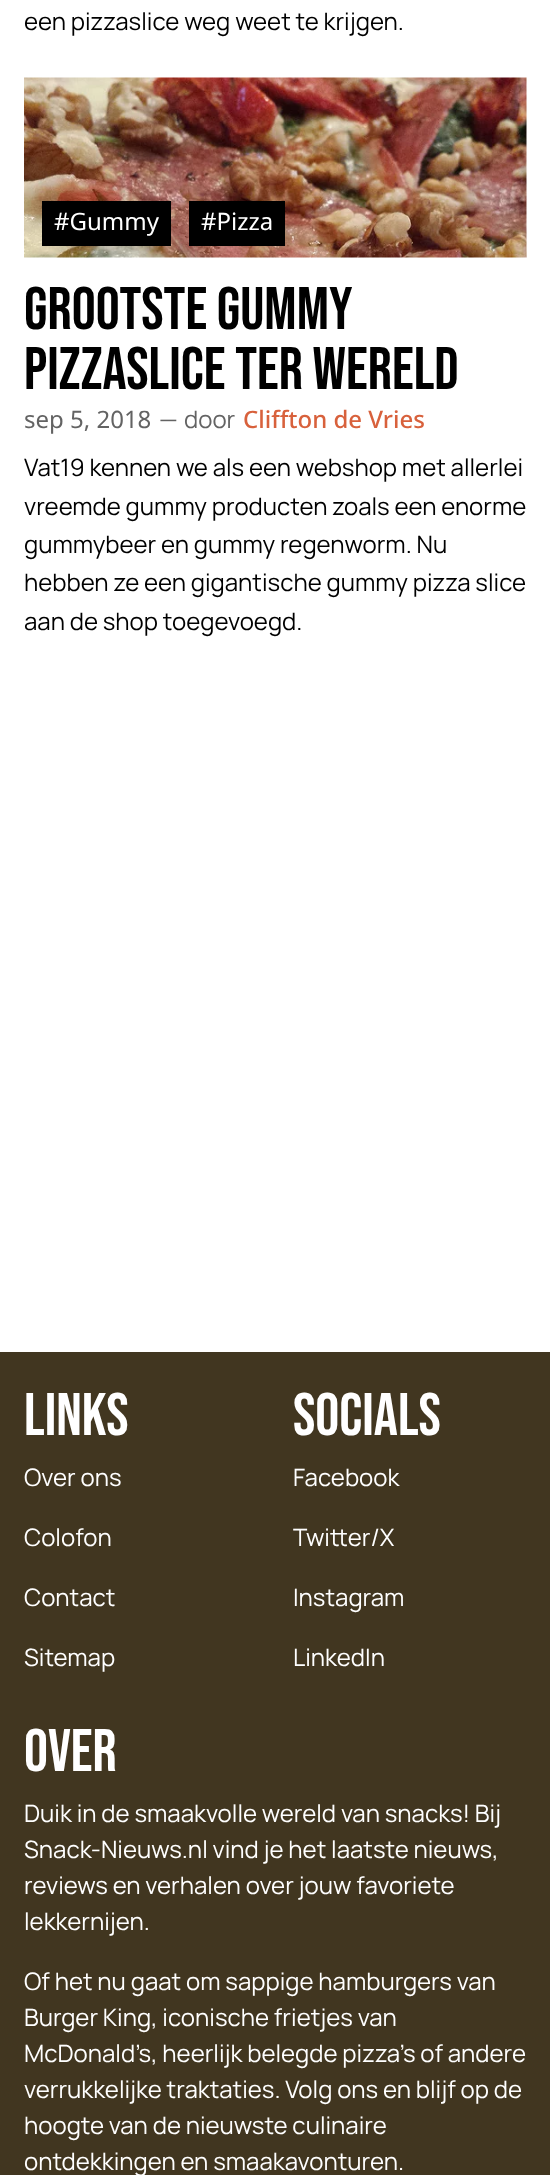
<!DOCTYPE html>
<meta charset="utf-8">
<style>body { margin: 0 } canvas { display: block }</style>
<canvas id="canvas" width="550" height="2175"></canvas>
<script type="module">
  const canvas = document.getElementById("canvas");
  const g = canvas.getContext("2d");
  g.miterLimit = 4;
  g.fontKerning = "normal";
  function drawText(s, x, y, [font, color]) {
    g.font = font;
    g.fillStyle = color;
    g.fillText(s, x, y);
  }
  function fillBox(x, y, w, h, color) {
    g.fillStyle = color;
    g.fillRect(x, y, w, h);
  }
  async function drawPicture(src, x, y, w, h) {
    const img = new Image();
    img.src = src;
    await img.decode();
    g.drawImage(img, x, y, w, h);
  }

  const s1 = ["24px Manrope", "#000000"];
  const s2 = ["24px Noto Sans", "#FFFFFF"];
  const s3 = ["60px Bebas Neue", "#000000"];
  const s4 = ["24px Noto Sans", "#636363"];
  const s5 = ["24px Manrope", "#636363"];
  const s6 = ["500 24px Noto Sans", "#D8613C"];
  const s7 = ["60px Bebas Neue", "#FFFFFF"];
  const s8 = ["24px Manrope", "#FFFFFF"];

  fillBox(0, 0, 550, 2175, "#FFFFFF");
  drawText("een pizzaslice weg weet te krijgen.", 24, 30, s1);
  await drawPicture("pic1.png", 24, 77, 503, 181);
  fillBox(42, 201, 129, 45, "#000000");
  drawText("#Gummy", 54, 230, s2);
  fillBox(189, 201, 96, 45, "#000000");
  drawText("#Pizza", 201, 230, s2);
  drawText("Grootste gummy", 24, 329, s3);
  drawText("pizzaslice ter wereld", 24, 389, s3);
  drawText("sep 5, 2018", 24, 428, s4);
  drawText("—", 159, 428, s5);
  drawText("door", 184, 428, s5);
  drawText("Cliffton de Vries", 243, 428, s6);
  drawText("Vat19 kennen we als een webshop met allerlei", 24, 476, s1);
  drawText("vreemde gummy producten zoals een enorme", 24, 515, s1);
  drawText("gummybeer en gummy regenworm. Nu", 24, 553, s1);
  drawText("hebben ze een gigantische gummy pizza slice", 24, 591, s1);
  drawText("aan de shop toegevoegd.", 24, 630, s1);
  fillBox(0, 1352, 550, 823, "#413620");
  drawText("Links", 24, 1435, s7);
  drawText("Over ons", 24, 1486, s8);
  drawText("Colofon", 24, 1546, s8);
  drawText("Contact", 24, 1606, s8);
  drawText("Sitemap", 24, 1666, s8);
  drawText("Socials", 293, 1435, s7);
  drawText("Facebook", 293, 1486, s8);
  drawText("Twitter/X", 293, 1546, s8);
  drawText("Instagram", 293, 1606, s8);
  drawText("LinkedIn", 293, 1666, s8);
  drawText("Over", 24, 1771, s7);
  drawText("Duik in de smaakvolle wereld van snacks! Bij", 24, 1822, s8);
  drawText("Snack-Nieuws.nl vind je het laatste nieuws,", 24, 1858, s8);
  drawText("reviews en verhalen over jouw favoriete", 24, 1894, s8);
  drawText("lekkernijen.", 24, 1930, s8);
  drawText("Of het nu gaat om sappige hamburgers van", 24, 1990, s8);
  drawText("Burger King, iconische frietjes van", 24, 2026, s8);
  drawText("McDonald’s, heerlijk belegde pizza’s of andere", 24, 2062, s8);
  drawText("verrukkelijke traktaties. Volg ons en blijf op de", 24, 2098, s8);
  drawText("hoogte van de nieuwste culinaire", 24, 2134, s8);
  drawText("ontdekkingen en smaakavonturen.", 24, 2170, s8);
</script>
